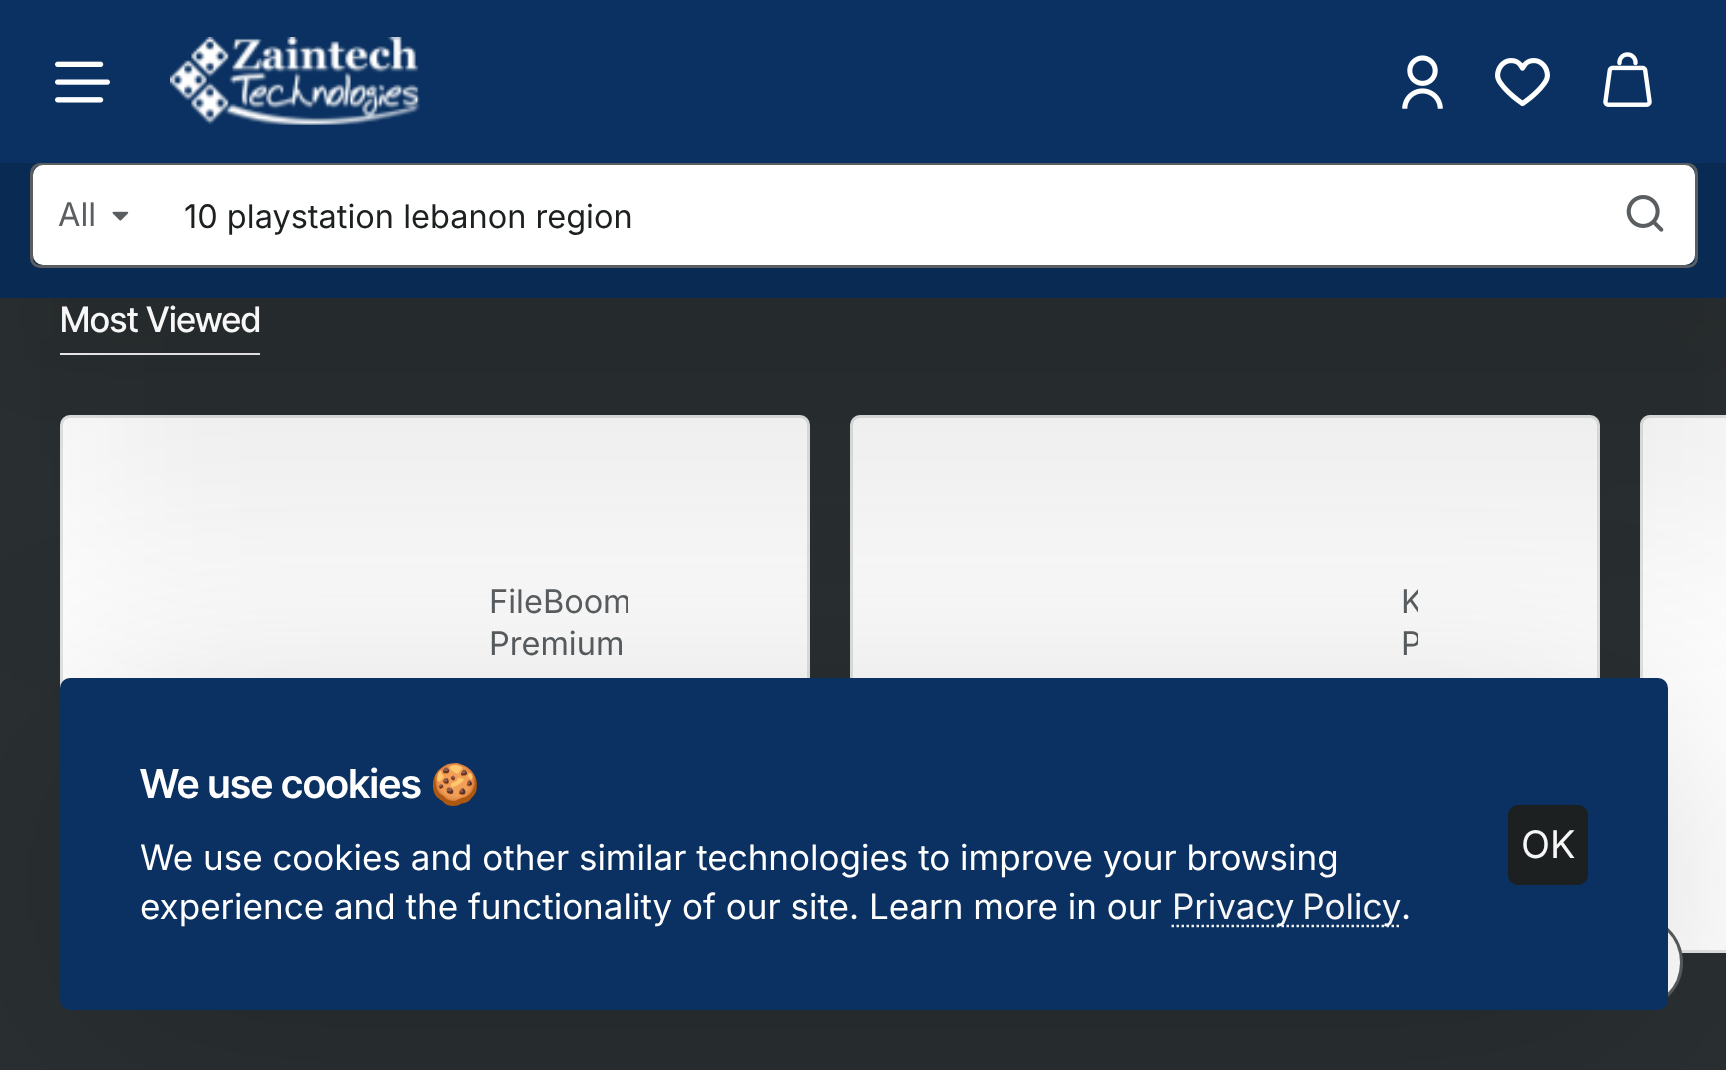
<!DOCTYPE html>
<meta charset="utf-8">
<style>body { margin: 0 } canvas { display: block }</style>
<canvas id="canvas" width="1726" height="1070"></canvas>
<script type="module">
  const canvas = document.getElementById("canvas");
  const g = canvas.getContext("2d");
  g.miterLimit = 4;
  g.fontKerning = "normal";
  function drawText(s, x, y, [font, color]) {
    g.font = font;
    g.fillStyle = color;
    g.fillText(s, x, y);
  }
  function fillBox(x, y, w, h, color) {
    g.fillStyle = color;
    g.fillRect(x, y, w, h);
  }
  function fillRounded(x, y, w, h, r, color) {
    g.fillStyle = color;
    g.beginPath();
    g.roundRect(x, y, w, h, r);
    g.fill();
  }
  async function drawPicture(src, x, y, w, h) {
    const img = new Image();
    img.src = src;
    await img.decode();
    g.drawImage(img, x, y, w, h);
  }

  const s1 = ["32.5px Inter", "#5A5E60"];
  const s2 = ["32.5px Inter", "#1C2021"];
  const s3 = ["500 35px Inter Tight", "#F7F7F7"];
  const s4 = ["600 40px Inter Tight", "#FFFFFF"];
  const s5 = ["bold 40px Noto Color Emoji", "#FFFFFF"];
  const s6 = ["35px Inter", "#FFFFFF"];
  const s7 = ["35px Inter", "#F7F7F7"];
  const s8 = ["38px Inter", "#F7F7F7"];

  fillBox(0, 0, 1726, 1070, "#2A3032");
  fillBox(60, 353, 200, 2, "#F7F7F7");
  fillRounded(60, 415, 750, 538, 10, "#FFFFFF");
  g.beginPath();
  g.roundRect(61.5, 416.5, 747, 535, 8.5);
  g.strokeStyle = "rgba(28, 32, 33, 0.12)";
  g.lineWidth = 3;
  g.stroke();
  fillRounded(850, 415, 750, 538, 10, "#FFFFFF");
  g.beginPath();
  g.roundRect(851.5, 416.5, 747, 535, 8.5);
  g.stroke();
  g.beginPath();
  g.moveTo(1650, 415);
  g.lineTo(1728, 415);
  g.lineTo(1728, 953);
  g.lineTo(1650, 953);
  g.bezierCurveTo(1644.5, 953, 1640, 948.5, 1640, 943);
  g.lineTo(1640, 425);
  g.bezierCurveTo(1640, 419.5, 1644.5, 415, 1650, 415);
  g.closePath();
  g.fill();
  g.beginPath();
  g.roundRect(1641.5, 416.5, 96, 535, 8.5);
  g.stroke();
  g.fillStyle = "rgba(0, 0, 0, 0.07)";
  g.filter = "blur(100px)";
  g.beginPath();
  g.rect(60, 250, 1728, 298);
  g.fill();
  g.filter = "none";
  g.fillStyle = "rgba(0, 0, 0, 0.05)";
  g.filter = "blur(30px)";
  g.beginPath();
  g.rect(18, 75, 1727, 298);
  g.fill();
  g.filter = "none";
  fillBox(0, 0, 1726, 163, "#0A3161");
  await drawPicture("pic1.png", 55, 61, 55, 42);
  await drawPicture("pic2.png", 170, 37, 250, 88);
  await drawPicture("pic3.png", 1402, 55, 41, 54);
  await drawPicture("pic4.png", 1495, 58, 55, 49);
  await drawPicture("pic5.png", 1603, 52, 49, 55);
  fillBox(0, 163, 1726, 135, "#092A53");
  g.beginPath();
  g.roundRect(31.5, 164.5, 1665, 102, 8.5);
  g.strokeStyle = "#5A5E60";
  g.stroke();
  g.fillStyle = "#FFFFFF";
  g.beginPath();
  g.roundRect(33, 165, 122, 100, [10, 0, 0, 10]);
  g.fill();
  drawText("All", 58, 226, s1);
  await drawPicture("pic6.png", 112, 211, 17, 10);
  fillBox(155, 165, 1440, 100, "#FFFFFF");
  drawText("10 playstation lebanon region", 184, 228, s2);
  g.fillStyle = "#FFFFFF";
  g.beginPath();
  g.roundRect(1595, 165, 100, 100, [0, 10, 10, 0]);
  g.fill();
  await drawPicture("pic7.png", 1626, 195, 38, 37);
  drawText("Most Viewed", 60, 332, s3);
  g.save();
  g.beginPath();
  g.rect(490, 580, 138, 88);
  g.clip();
  drawText("FileBoom", 489, 613, s1);
  g.restore();
  drawText("Premium", 489, 655, s1);
  g.save();
  g.beginPath();
  g.rect(1400, 580, 18, 88);
  g.clip();
  drawText("K", 1401, 613, s1);
  drawText("P", 1401, 655, s1);
  g.restore();
  g.fillStyle = "#FFFFFF";
  g.beginPath();
  g.arc(1635.5, 962.5, 46, 0, Math.PI * 2);
  g.fill();
  g.stroke();
  g.fillStyle = "rgba(0, 0, 0, 0.2)";
  g.filter = "blur(112.5px)";
  g.beginPath();
  g.rect(85, 740, 1558, 283);
  g.fill();
  g.filter = "none";
  fillRounded(60, 678, 1608, 332, 10, "#0A3161");
  drawText("We use cookies", 140, 798, s4);
  drawText("🍪", 430, 798, s5);
  drawText("We use cookies and other similar technologies to improve your browsing", 140, 870, s6);
  drawText("experience and the functionality of our site. Learn more in our", 140, 919, s6);
  g.beginPath();
  g.moveTo(1171.5, 926);
  g.lineTo(1401.5, 926);
  g.strokeStyle = "#F2F2F2";
  g.lineWidth = 2.5;
  g.setLineDash([2.5, 2.5]);
  g.stroke();
  g.wordSpacing = "-2px";
  drawText("Privacy Policy", 1172, 919, s7);
  g.wordSpacing = "0px";
  drawText(".", 1401, 919, s6);
  fillRounded(1508, 805, 80, 80, 10, "#1C2021");
  drawText("OK", 1521, 858, s8);
</script>
